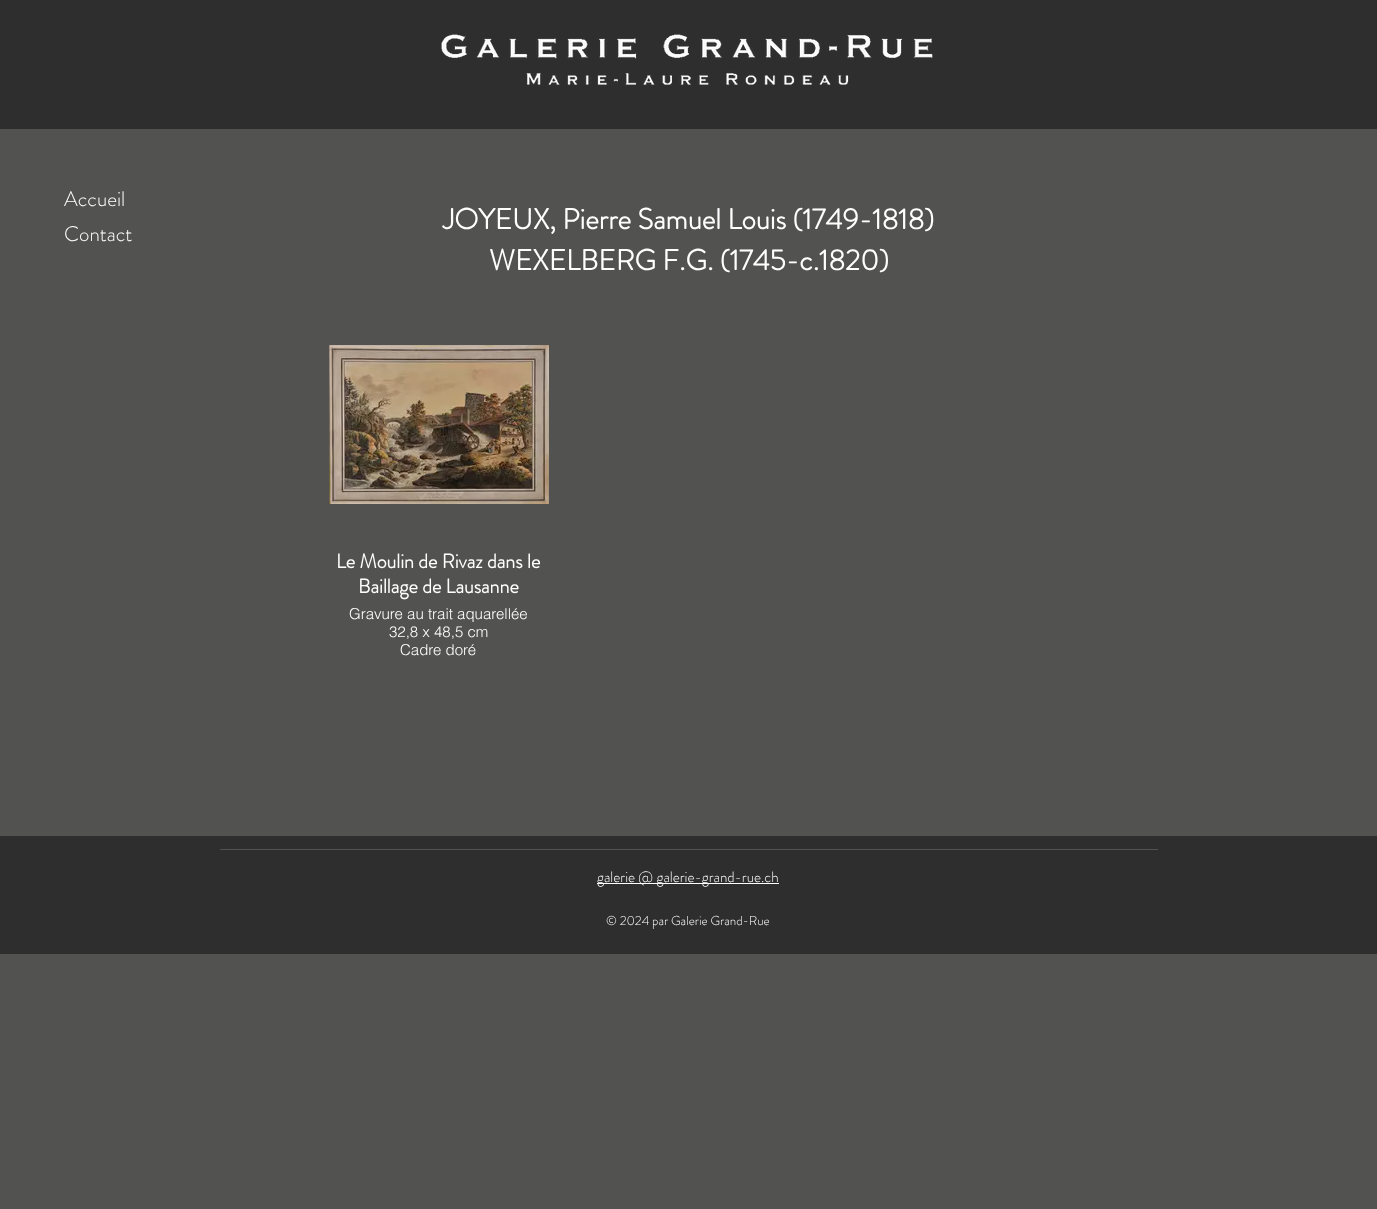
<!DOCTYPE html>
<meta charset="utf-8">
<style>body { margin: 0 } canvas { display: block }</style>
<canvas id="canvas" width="1377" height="1209"></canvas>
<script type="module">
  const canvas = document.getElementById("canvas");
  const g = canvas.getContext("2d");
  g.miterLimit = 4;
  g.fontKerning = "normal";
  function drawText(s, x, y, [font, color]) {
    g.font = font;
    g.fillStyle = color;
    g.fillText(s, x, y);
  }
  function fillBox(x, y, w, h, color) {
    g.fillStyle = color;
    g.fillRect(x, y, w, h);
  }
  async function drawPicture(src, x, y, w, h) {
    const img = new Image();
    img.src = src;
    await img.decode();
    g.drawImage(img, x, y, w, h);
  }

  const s1 = ["300 21px 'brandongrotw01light'", "#FFFFFF"];
  const s2 = ["bold 29px 'brandongrotw01light'", "#FFFFFF"];
  const s3 = ["bold 20px 'brandongrotw01light'", "#FFFFFF"];
  const s4 = ["300 15px helvetica", "#FFFFFF"];
  const s5 = ["300 15px 'brandongrotw01light'", "#FFFFFF"];
  const s6 = ["300 13px 'brandongrotw01light'", "#FFFFFF"];

  fillBox(0, 0, 1377, 1209, "#525251");
  fillBox(0, 0, 1377, 129, "#2F2E2E");
  await drawPicture("pic1.png", 441, 34, 492, 52);
  drawText("Accueil", 64, 206, s1);
  drawText("Contact", 64, 241, s1);
  drawText("JOYEUX, Pierre Samuel Louis (1749-1818)", 443, 229, s2);
  drawText("WEXELBERG F.G. (1745-c.1820)", 489, 270, s2);
  await drawPicture("pic2.png", 329, 345, 220, 159);
  drawText("Le Moulin de Rivaz dans le", 336, 568, s3);
  drawText("Baillage de Lausanne", 358, 593, s3);
  drawText("Gravure au trait aquarellée", 349, 619, s4);
  drawText("32,8 x 48,5 cm", 389, 637, s4);
  drawText("Cadre doré", 400, 655, s4);
  fillBox(0, 836, 1377, 118, "#2F2E2E");
  fillBox(220, 849, 938, 1, "#525251");
  fillBox(597, 883, 182, 1, "#FFFFFF");
  drawText("galerie @ galerie-grand-rue.ch", 597, 882, s5);
  drawText("© 2024 par Galerie Grand-Rue", 606, 925, s6);
</script>
